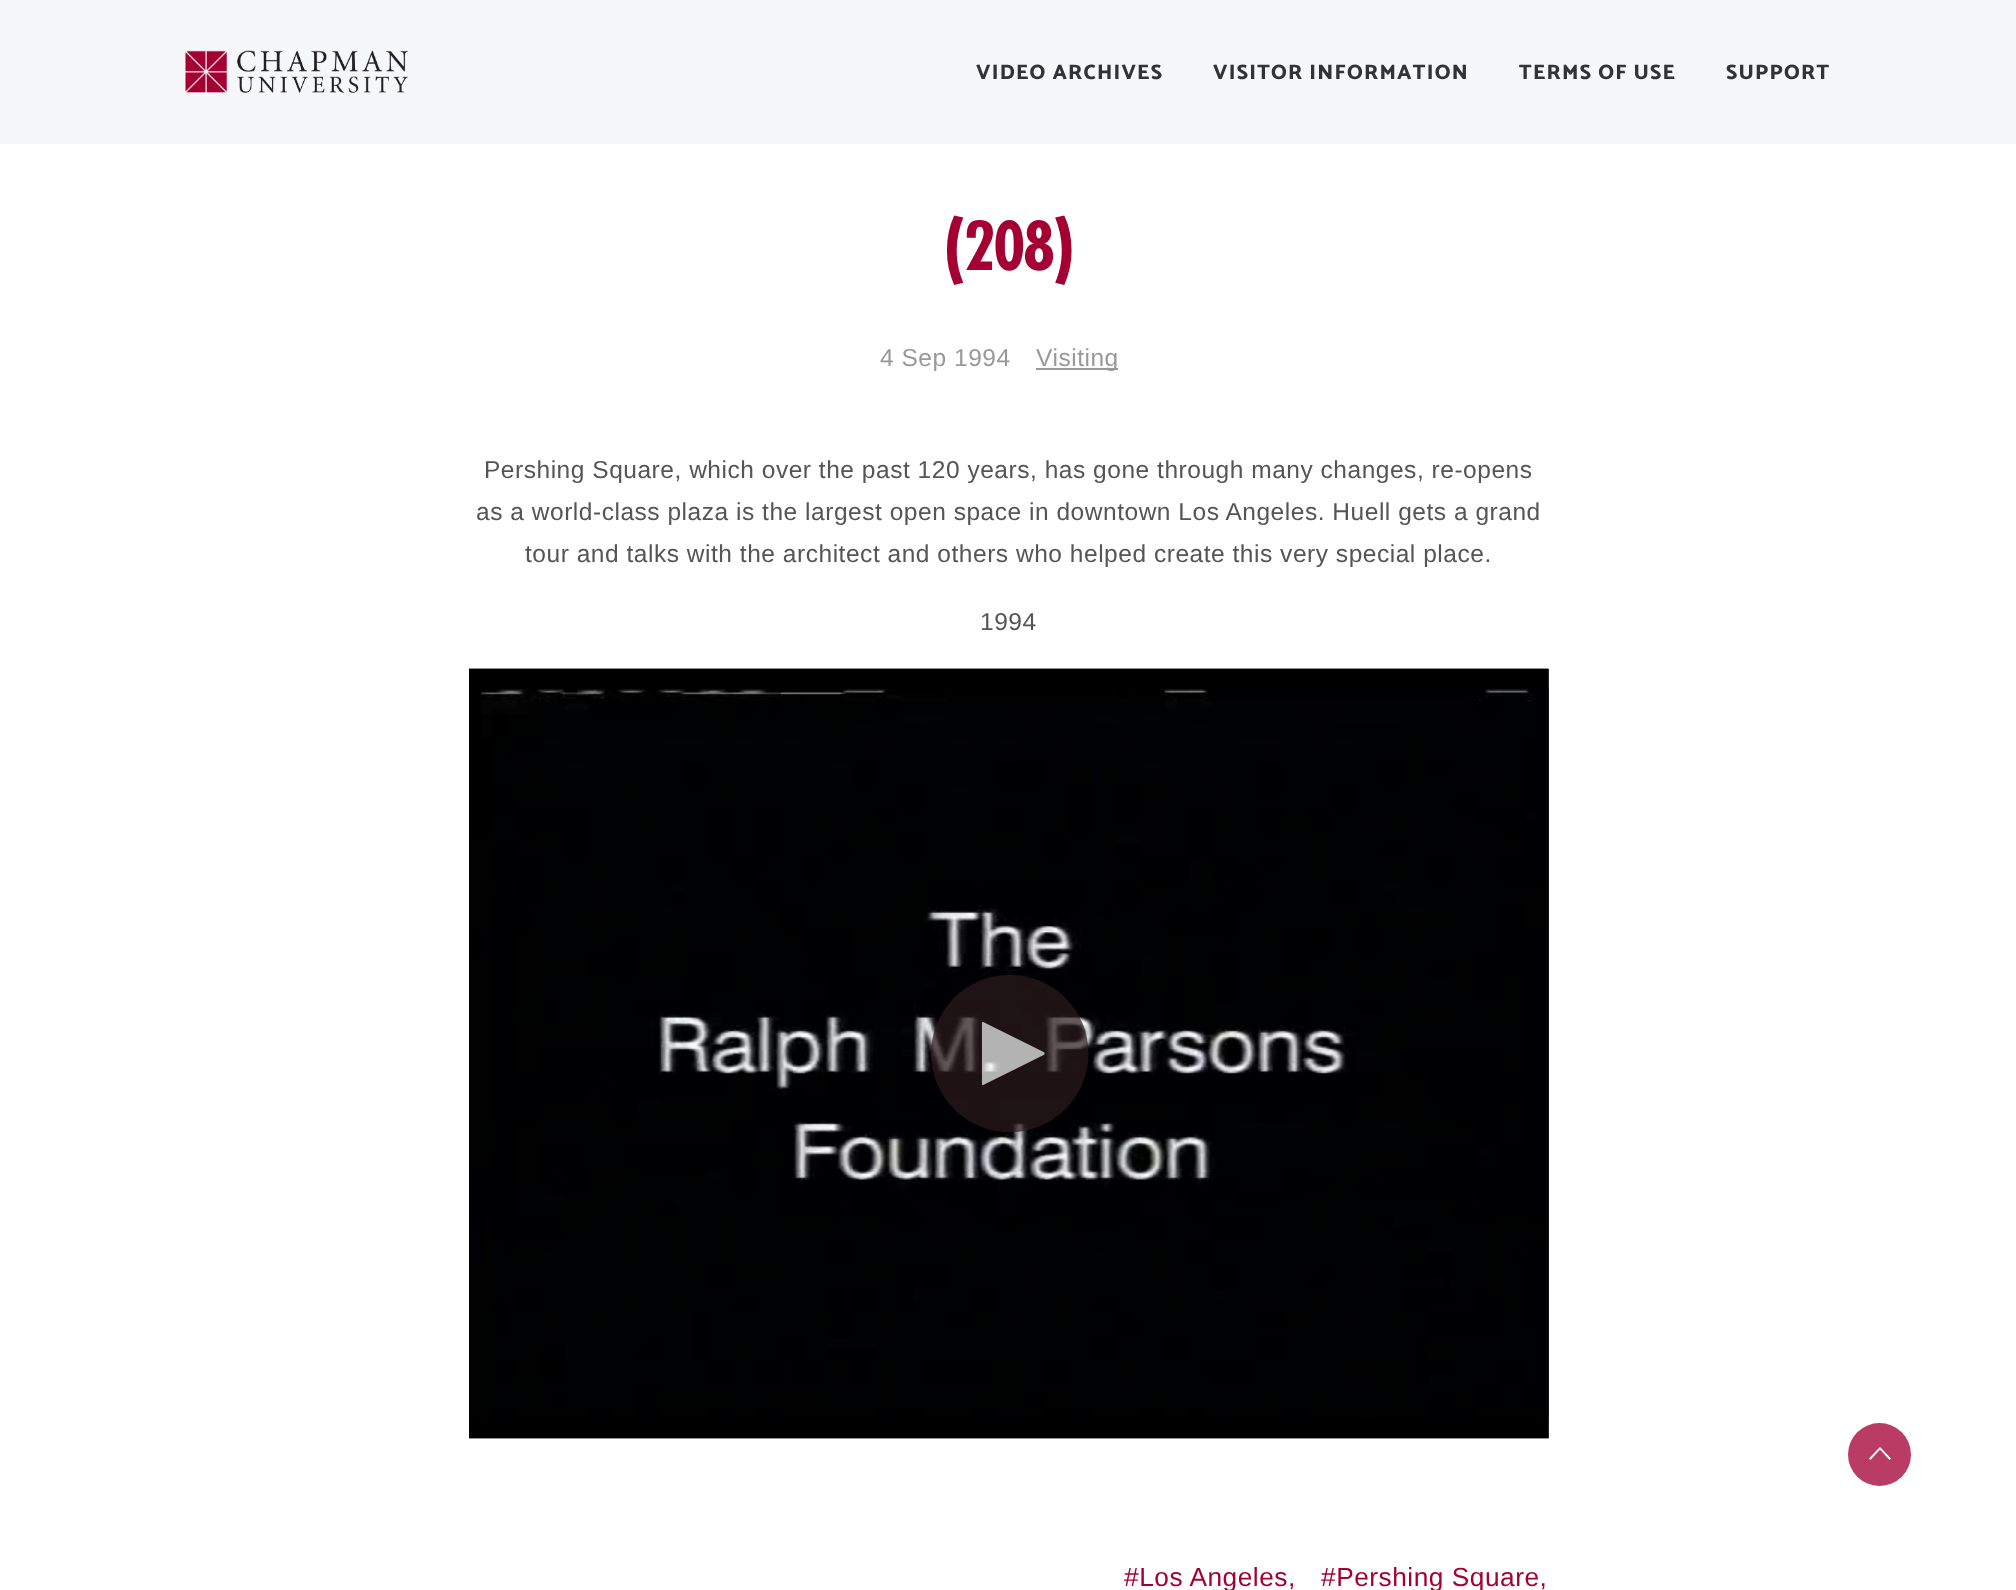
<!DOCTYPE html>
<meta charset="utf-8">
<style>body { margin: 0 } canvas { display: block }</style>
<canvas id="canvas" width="2016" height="1590"></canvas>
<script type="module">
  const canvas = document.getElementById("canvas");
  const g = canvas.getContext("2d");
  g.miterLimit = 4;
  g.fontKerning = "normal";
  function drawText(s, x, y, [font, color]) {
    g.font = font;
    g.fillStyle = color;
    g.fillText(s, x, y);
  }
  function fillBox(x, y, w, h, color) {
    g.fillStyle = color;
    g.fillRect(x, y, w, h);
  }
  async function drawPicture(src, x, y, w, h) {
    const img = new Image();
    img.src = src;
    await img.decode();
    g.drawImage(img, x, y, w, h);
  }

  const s1 = ["800 21px Catamaran", "#333333"];
  const s2 = ["bold 74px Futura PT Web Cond", "#A50034"];
  const s3 = ["24.5px Liberation Sans", "#999999"];
  const s4 = ["24.5px Liberation Sans", "#555555"];
  const s5 = ["26.25px Liberation Sans", "#A50034"];

  fillBox(0, 0, 2016, 1590, "#FFFFFF");
  fillBox(0, 0, 2016, 144, "#F6F7F8");
  await drawPicture("pic1.png", 185, 50, 223, 43);
  g.letterSpacing = "1.25px";
  drawText("VIDEO ARCHIVES", 976, 79, s1);
  drawText("VISITOR INFORMATION", 1213, 79, s1);
  drawText("TERMS OF USE", 1519, 79, s1);
  drawText("SUPPORT", 1726, 79, s1);
  g.letterSpacing = "-2.25px";
  drawText("(208)", 943, 270, s2);
  g.letterSpacing = "0.53px";
  drawText("4 Sep 1994", 880, 366, s3);
  fillBox(1036, 368, 82, 2, "#999999");
  drawText("Visiting", 1036, 366, s3);
  drawText("Pershing Square, which over the past 120 years, has gone through many changes, re-opens", 484, 478, s4);
  drawText("as a world-class plaza is the largest open space in downtown Los Angeles. Huell gets a grand", 476, 520, s4);
  drawText("tour and talks with the architect and others who helped create this very special place.", 525, 562, s4);
  drawText("1994", 980, 630, s4);
  await drawPicture("pic2.png", 469, 668, 1080, 771);
  drawText("#Los Angeles,", 1124, 1586, s5);
  drawText("#Pershing Square,", 1321, 1586, s5);
  g.fillStyle = "#BA3B63";
  g.beginPath();
  g.arc(1879.5, 1454.5, 31.5, 0, Math.PI * 2);
  g.fill();
  g.fillStyle = "#FFFFFF";
  g.beginPath();
  g.moveTo(1889.5, 1460);
  g.lineTo(1880, 1449.5);
  g.lineTo(1870.5, 1460);
  g.lineTo(1869, 1458.5);
  g.lineTo(1880, 1447);
  g.lineTo(1891, 1458.5);
  g.closePath();
  g.fill();
</script>
